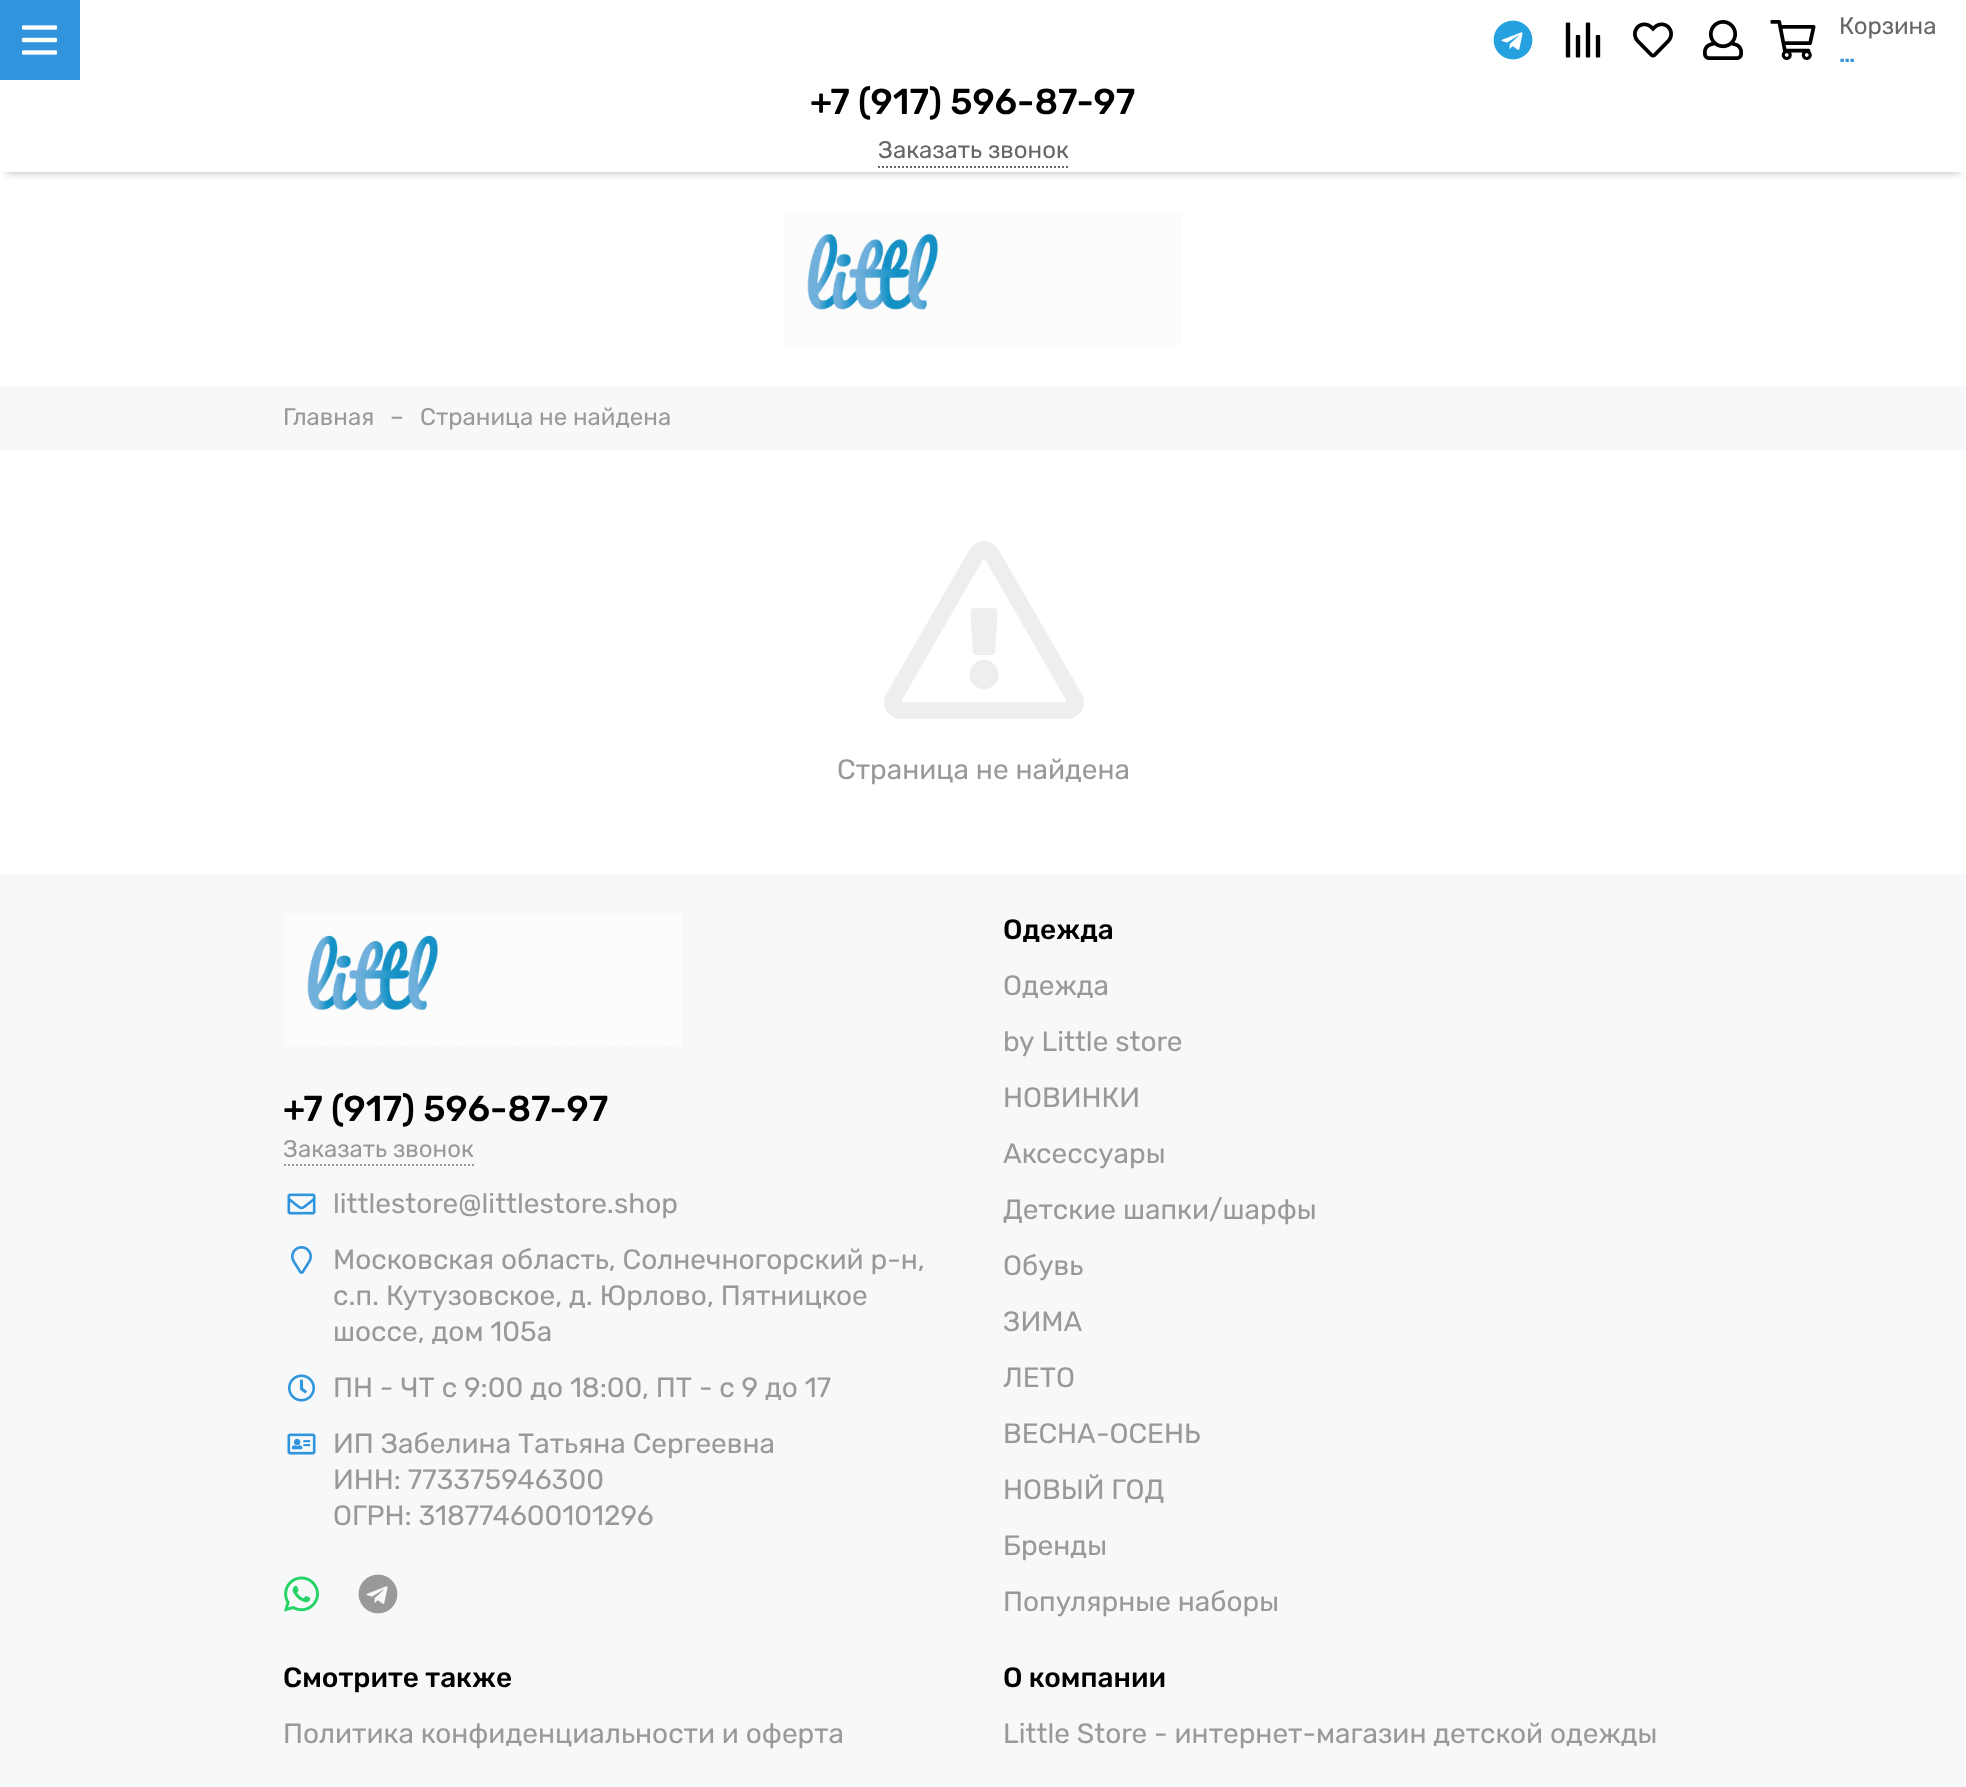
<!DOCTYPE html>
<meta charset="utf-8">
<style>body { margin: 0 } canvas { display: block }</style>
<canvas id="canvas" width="1966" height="1787"></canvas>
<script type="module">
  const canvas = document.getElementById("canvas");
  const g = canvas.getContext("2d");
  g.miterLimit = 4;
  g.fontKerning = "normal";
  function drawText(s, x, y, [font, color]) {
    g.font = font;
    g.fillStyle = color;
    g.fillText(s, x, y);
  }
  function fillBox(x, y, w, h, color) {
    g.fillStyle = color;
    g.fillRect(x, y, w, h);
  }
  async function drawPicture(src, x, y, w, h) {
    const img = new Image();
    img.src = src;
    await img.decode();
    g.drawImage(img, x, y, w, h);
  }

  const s1 = ["24px Rubik", "#666666"];
  const s2 = ["500 24px Rubik", "#3095DD"];
  const s3 = ["500 36px Rubik", "#000000"];
  const s4 = ["24px Rubik", "#999999"];
  const s5 = ["28px Rubik", "#999999"];
  const s6 = ["500 28px Rubik", "#000000"];

  fillBox(0, 0, 1966, 1787, "#FFFFFF");
  g.save();
  g.beginPath();
  g.rect(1, 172, 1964, 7);
  g.clip();
  g.fillStyle = "rgba(0, 0, 0, 0.3)";
  g.filter = "blur(5px)";
  g.beginPath();
  g.rect(6, 12, 1954, 160);
  g.fill();
  g.filter = "none";
  g.restore();
  fillBox(0, 0, 80, 80, "#3095DD");
  await drawPicture("pic1.png", 22, 25, 35, 30);
  await drawPicture("pic2.png", 1493, 20, 40, 40);
  await drawPicture("pic3.png", 1565, 22, 36, 36);
  await drawPicture("pic4.png", 1633, 22, 40, 36);
  await drawPicture("pic5.png", 1703, 20, 40, 40);
  await drawPicture("pic6.png", 1770, 20, 46, 40);
  drawText("Корзина", 1839, 34, s1);
  drawText("…", 1839, 62, s2);
  drawText("+7 (917) 596-87-97", 810, 114, s3);
  g.beginPath();
  g.moveTo(878, 167);
  g.lineTo(1068, 167);
  g.strokeStyle = "#666666";
  g.lineWidth = 2;
  g.setLineDash([2, 2]);
  g.stroke();
  drawText("Заказать звонок", 878, 158, s1);
  await drawPicture("pic7.png", 784, 212, 398, 134);
  fillBox(0, 386, 1966, 64, "#F7F8FA");
  drawText("Главная", 283, 425, s4);
  drawText("–", 390, 425, s4);
  drawText("Страница не найдена", 420, 425, s4);
  await drawPicture("pic8.png", 884, 541, 200, 178);
  drawText("Страница не найдена", 837, 779, s5);
  fillBox(0, 874, 1966, 913, "#F7F8FA");
  await drawPicture("pic9.png", 284, 914, 398, 132);
  drawText("+7 (917) 596-87-97", 283, 1121, s3);
  g.beginPath();
  g.moveTo(284, 1165);
  g.lineTo(474, 1165);
  g.strokeStyle = "#999999";
  g.stroke();
  drawText("Заказать звонок", 283, 1157, s4);
  await drawPicture("pic10.png", 287, 1193, 29, 22);
  drawText("littlestore@littlestore.shop", 333, 1213, s5);
  await drawPicture("pic11.png", 291, 1246, 21, 28);
  drawText("Московская область, Солнечногорский р-н,", 333, 1269, s5);
  drawText("с.п. Кутузовское, д. Юрлово, Пятницкое", 333, 1305, s5);
  drawText("шоссе, дом 105а", 333, 1341, s5);
  await drawPicture("pic12.png", 288, 1374, 27, 28);
  drawText("ПН - ЧТ с 9:00 до 18:00, ПТ - с 9 до 17", 333, 1397, s5);
  await drawPicture("pic13.png", 287, 1433, 29, 22);
  drawText("ИП Забелина Татьяна Сергеевна", 333, 1453, s5);
  drawText("ИНН: 773375946300", 333, 1489, s5);
  drawText("ОГРН: 318774600101296", 333, 1525, s5);
  await drawPicture("pic14.png", 284, 1576, 35, 36);
  await drawPicture("pic15.png", 358, 1574, 40, 40);
  drawText("Одежда", 1003, 939, s6);
  drawText("Одежда", 1003, 995, s5);
  drawText("by Little store", 1003, 1051, s5);
  drawText("НОВИНКИ", 1003, 1107, s5);
  drawText("Аксессуары", 1003, 1163, s5);
  drawText("Детские шапки/шарфы", 1003, 1219, s5);
  drawText("Обувь", 1003, 1275, s5);
  drawText("ЗИМА", 1003, 1331, s5);
  drawText("ЛЕТО", 1003, 1387, s5);
  drawText("ВЕСНА-ОСЕНЬ", 1003, 1443, s5);
  drawText("НОВЫЙ ГОД", 1003, 1499, s5);
  drawText("Бренды", 1003, 1555, s5);
  drawText("Популярные наборы", 1003, 1611, s5);
  drawText("Смотрите также", 283, 1687, s6);
  drawText("Политика конфиденциальности и оферта", 283, 1743, s5);
  drawText("О компании", 1003, 1687, s6);
  drawText("Little Store - интернет-магазин детской одежды", 1003, 1743, s5);
</script>
